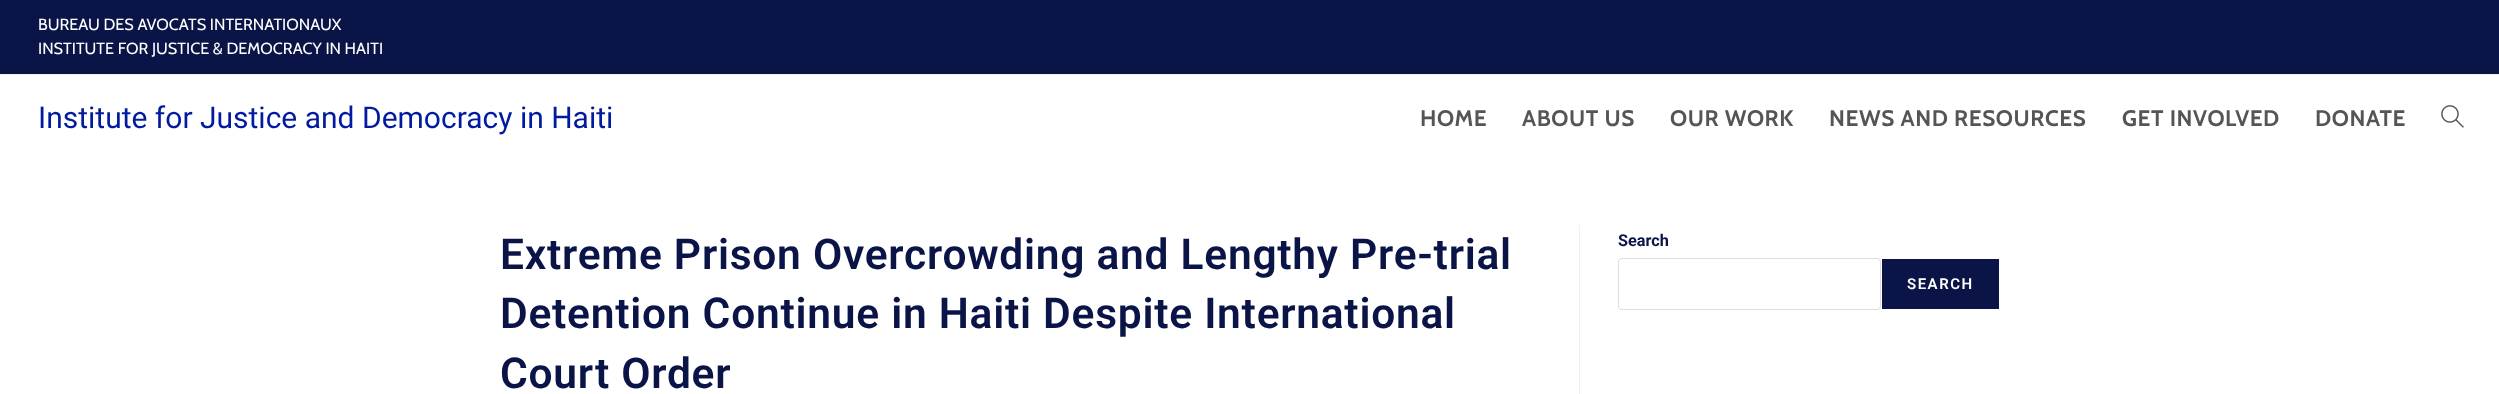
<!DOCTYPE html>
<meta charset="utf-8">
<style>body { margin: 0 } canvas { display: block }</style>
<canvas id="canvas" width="2499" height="394"></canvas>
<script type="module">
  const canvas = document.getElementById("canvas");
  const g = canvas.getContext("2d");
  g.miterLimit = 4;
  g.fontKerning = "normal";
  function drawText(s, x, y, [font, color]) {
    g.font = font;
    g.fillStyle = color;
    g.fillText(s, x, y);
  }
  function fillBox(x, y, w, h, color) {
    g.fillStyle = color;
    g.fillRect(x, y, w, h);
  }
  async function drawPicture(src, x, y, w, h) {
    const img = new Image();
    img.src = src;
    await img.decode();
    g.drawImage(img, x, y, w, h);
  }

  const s1 = ["16.25px Cabin", "#FFFFFF"];
  const s2 = ["30px Roboto", "#001AA0"];
  const s3 = ["bold 22.5px Cabin", "#555555"];
  const s4 = ["600 42.5px Roboto", "#0B1447"];
  const s5 = ["bold 16.25px Roboto", "#0B1447"];
  const s6 = ["600 15px Roboto", "#FFFFFF"];

  fillBox(0, 0, 2499, 394, "#FFFFFF");
  fillBox(0, 0, 2499, 74, "#0B1447");
  fillBox(0, 74, 2499, 1, "#F1F1F1");
  drawText("BUREAU DES AVOCATS INTERNATIONAUX", 38, 30, s1);
  drawText("INSTITUTE FOR JUSTICE & DEMOCRACY IN HAITI", 38, 54, s1);
  drawText("Institute for Justice and Democracy in Haiti", 38, 128, s2);
  g.letterSpacing = "0.6px";
  drawText("HOME", 1420, 126, s3);
  drawText("ABOUT US", 1522, 126, s3);
  drawText("OUR WORK", 1670, 126, s3);
  drawText("NEWS AND RESOURCES", 1829, 126, s3);
  drawText("GET INVOLVED", 2122, 126, s3);
  drawText("DONATE", 2315, 126, s3);
  await drawPicture("pic1.png", 2441, 105, 23, 23);
  fillBox(1579, 225, 1, 169, "#F1F1F1");
  g.letterSpacing = "0.75px";
  drawText("Extreme Prison Overcrowding and Lengthy Pre-trial", 500, 269, s4);
  drawText("Detention Continue in Haiti Despite International", 500, 328, s4);
  drawText("Court Order", 500, 388, s4);
  g.letterSpacing = "0px";
  drawText("Search", 1618, 246, s5);
  g.beginPath();
  g.roundRect(1618.5, 258.5, 262, 51, 3.5);
  g.strokeStyle = "#DDDDDD";
  g.stroke();
  fillBox(1882, 259, 117, 50, "#0B1447");
  g.letterSpacing = "1.5px";
  drawText("SEARCH", 1907, 289, s6);
</script>
